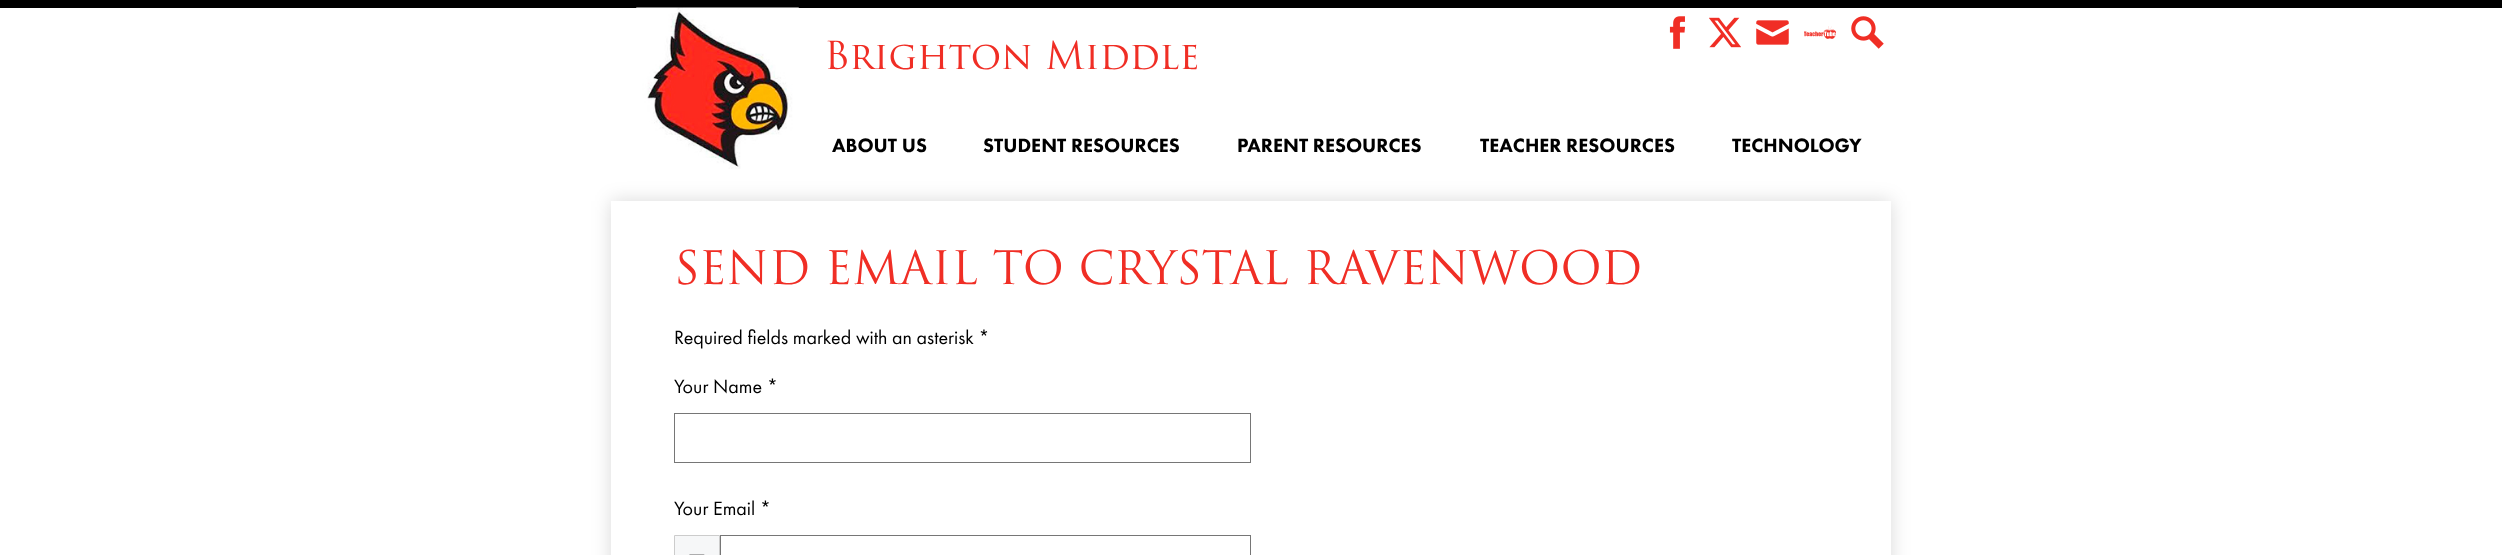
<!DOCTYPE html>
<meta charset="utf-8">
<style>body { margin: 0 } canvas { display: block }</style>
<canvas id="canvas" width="2502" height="555"></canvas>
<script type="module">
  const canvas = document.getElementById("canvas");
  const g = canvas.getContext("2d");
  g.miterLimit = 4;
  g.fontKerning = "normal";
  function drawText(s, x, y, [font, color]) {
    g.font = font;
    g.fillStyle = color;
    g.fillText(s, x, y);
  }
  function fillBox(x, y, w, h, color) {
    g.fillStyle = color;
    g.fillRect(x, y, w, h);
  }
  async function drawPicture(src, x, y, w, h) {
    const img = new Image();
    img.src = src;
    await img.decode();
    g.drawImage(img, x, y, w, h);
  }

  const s1 = ["37.6px 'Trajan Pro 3'", "#F02E25"];
  const s2 = ["900 20px Futura PT", "#000000"];
  const s3 = ["45px 'Trajan Pro 3'", "#F02E25"];
  const s4 = ["20px Futura PT", "#000000"];

  fillBox(0, 0, 2502, 555, "#FFFFFF");
  fillBox(0, 0, 2502, 8, "#000000");
  await drawPicture("pic1.png", 1669, 16, 16, 33);
  await drawPicture("pic2.png", 1709, 17, 32, 31);
  await drawPicture("pic3.png", 1756, 20, 33, 25);
  await drawPicture("pic4.png", 1804, 26, 32, 13);
  await drawPicture("pic5.png", 1851, 16, 33, 33);
  await drawPicture("pic6.png", 636, 7, 163, 162);
  drawText("Brighton Middle", 824, 69, s1);
  drawText("ABOUT US", 832, 152, s2);
  drawText("STUDENT RESOURCES", 983, 152, s2);
  drawText("PARENT RESOURCES", 1237, 152, s2);
  drawText("TEACHER RESOURCES", 1480, 152, s2);
  drawText("TECHNOLOGY", 1732, 152, s2);
  g.fillStyle = "rgba(0, 0, 0, 0.15)";
  g.filter = "blur(9.5px)";
  g.beginPath();
  g.rect(611, 201, 1280, 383);
  g.fill();
  g.filter = "none";
  fillBox(611, 201, 1280, 354, "#FFFFFF");
  drawText("SEND EMAIL TO CRYSTAL RAVENWOOD", 674, 284, s3);
  drawText("Required fields marked with an asterisk *", 674, 344, s4);
  drawText("Your Name *", 674, 393, s4);
  g.strokeStyle = "#767676";
  g.strokeRect(674.5, 413.5, 576, 49);
  drawText("Your Email *", 674, 515, s4);
  g.fillStyle = "#F6F7F8";
  g.beginPath();
  g.rect(674.5, 535.5, 45, 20);
  g.fill();
  g.strokeStyle = "#CCCCCC";
  g.stroke();
  await drawPicture("pic7.png", 689, 554, 16, 1);
  g.strokeStyle = "#767676";
  g.strokeRect(720.5, 535.5, 530, 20);
</script>
